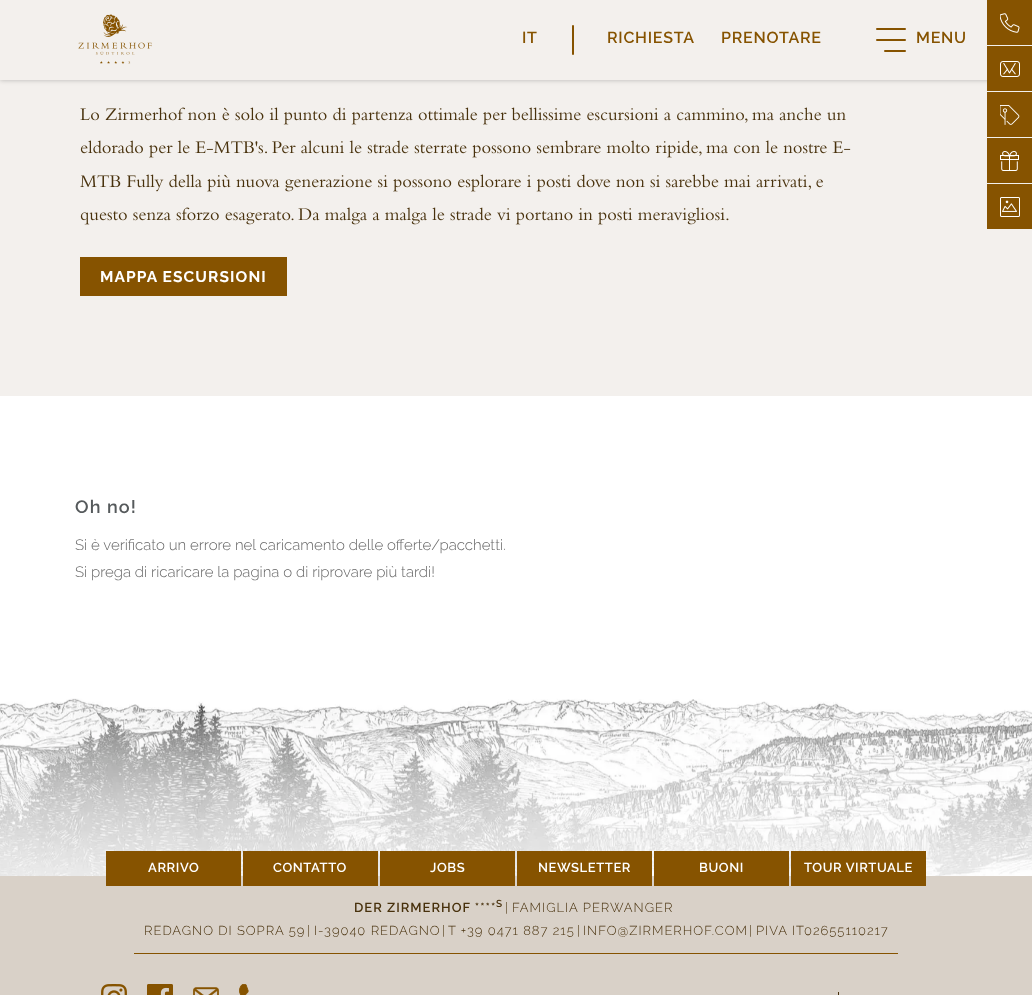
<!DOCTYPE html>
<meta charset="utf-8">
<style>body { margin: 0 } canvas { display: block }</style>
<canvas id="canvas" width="1032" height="995"></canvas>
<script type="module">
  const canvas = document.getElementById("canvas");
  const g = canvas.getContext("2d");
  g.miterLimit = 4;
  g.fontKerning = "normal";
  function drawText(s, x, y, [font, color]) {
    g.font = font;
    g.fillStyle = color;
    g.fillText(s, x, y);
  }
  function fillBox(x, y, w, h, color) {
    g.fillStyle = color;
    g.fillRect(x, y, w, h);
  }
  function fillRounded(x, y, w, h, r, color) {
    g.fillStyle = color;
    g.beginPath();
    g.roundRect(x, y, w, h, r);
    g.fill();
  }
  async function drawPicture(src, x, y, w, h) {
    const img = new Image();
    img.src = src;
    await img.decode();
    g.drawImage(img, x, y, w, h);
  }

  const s1 = ["600 16px Raleway", "#865300"];
  const s2 = ["bold 15.5px Raleway", "#FFFFFF"];
  const s3 = ["600 18px Raleway", "#565A5C"];
  const s4 = ["300 15px Raleway", "#666666"];
  const s5 = ["600 13px Raleway", "#FFFFFF"];
  const s6 = ["600 13px Raleway", "#48310C"];
  const s7 = ["600 10px Raleway", "#48310C"];
  const s8 = ["300 13px Raleway", "#48310C"];

  fillBox(0, 0, 1032, 995, "#FFFFFF");
  fillBox(0, 80, 1032, 316, "#F3F0ED");
  g.fillStyle = "rgba(0, 0, 0, 0.25)";
  g.filter = "blur(2.5px)";
  g.beginPath();
  g.rect(0, 0, 1032, 80);
  g.fill();
  g.filter = "none";
  fillBox(0, 0, 1032, 80, "#F3F0ED");
  await drawPicture("pic1.png", 78, 14, 74, 50);
  g.letterSpacing = "0.75px";
  drawText("IT", 522, 43, s1);
  fillRounded(572, 25, 2, 30, 1, "#865300");
  drawText("RICHIESTA", 607, 43, s1);
  drawText("PRENOTARE", 721, 43, s1);
  fillRounded(876, 28, 30, 2, 1, "#865300");
  fillRounded(876, 39, 30, 2, 1, "#865300");
  drawText("MENU", 916, 43, s1);
  fillRounded(884, 50, 22, 2, 1, "#865300");
  fillBox(987, 0, 45, 45, "#865300");
  await drawPicture("pic2.png", 1000, 13, 20, 20);
  fillBox(987, 46, 45, 45, "#865300");
  await drawPicture("pic3.png", 1000, 61, 20, 16);
  fillBox(987, 92, 45, 45, "#865300");
  await drawPicture("pic4.png", 1000, 105, 20, 20);
  fillBox(987, 138, 45, 45, "#865300");
  await drawPicture("pic5.png", 1000, 151, 19, 20);
  fillBox(987, 184, 45, 45, "#865300");
  await drawPicture("pic6.png", 1000, 197, 20, 20);
  await drawPicture("pic7.png", 80, 107, 766, 18);
  await drawPicture("pic8.png", 80, 140, 771, 18);
  await drawPicture("pic9.png", 80, 174, 743, 18);
  await drawPicture("pic10.png", 80, 207, 649, 18);
  fillBox(80, 257, 207, 39, "#865300");
  g.letterSpacing = "1.1px";
  drawText("MAPPA ESCURSIONI", 100, 282, s2);
  drawText("Oh no!", 75, 513, s3);
  g.letterSpacing = "0px";
  drawText("Si è verificato un errore nel caricamento delle offerte/pacchetti.", 75, 550, s4);
  drawText("Si prega di ricaricare la pagina o di riprovare più tardi!", 75, 577, s4);
  await drawPicture("pic11.png", 0, 698, 1032, 178);
  fillBox(0, 876, 1032, 119, "#D9D1C8");
  fillBox(106, 851, 135, 35, "#865300");
  g.letterSpacing = "0.6px";
  drawText("ARRIVO", 148, 872, s5);
  fillBox(243, 851, 135, 35, "#865300");
  drawText("CONTATTO", 273, 872, s5);
  fillBox(380, 851, 135, 35, "#865300");
  drawText("JOBS", 430, 872, s5);
  fillBox(517, 851, 135, 35, "#865300");
  drawText("NEWSLETTER", 538, 872, s5);
  fillBox(654, 851, 135, 35, "#865300");
  drawText("BUONI", 699, 872, s5);
  fillBox(791, 851, 135, 35, "#865300");
  drawText("TOUR VIRTUALE", 804, 872, s5);
  fillBox(134, 953, 764, 1, "#865300");
  g.letterSpacing = "1px";
  drawText("DER ZIRMERHOF ****", 354, 912, s6);
  drawText("S", 496, 907, s7);
  drawText("|", 505, 912, s8);
  drawText("FAMIGLIA PERWANGER", 512, 912, s8);
  drawText("REDAGNO DI SOPRA 59", 144, 935, s8);
  drawText("|", 307, 935, s8);
  drawText("I-", 314, 935, s8);
  drawText("39040 REDAGNO", 324, 935, s8);
  drawText("|", 442, 935, s8);
  drawText("T +39 0471 887 215", 448, 935, s8);
  drawText("|", 577, 935, s8);
  drawText("INFO@ZIRMERHOF.COM", 583, 935, s8);
  drawText("|", 749, 935, s8);
  drawText("PIVA IT02655110217", 756, 935, s8);
  await drawPicture("pic12.png", 101, 984, 26, 11);
  await drawPicture("pic13.png", 147, 984, 26, 11);
  await drawPicture("pic14.png", 193, 987, 26, 8);
  await drawPicture("pic15.png", 239, 984, 10, 11);
  fillBox(838, 992, 1, 3, "#48310C");
</script>
